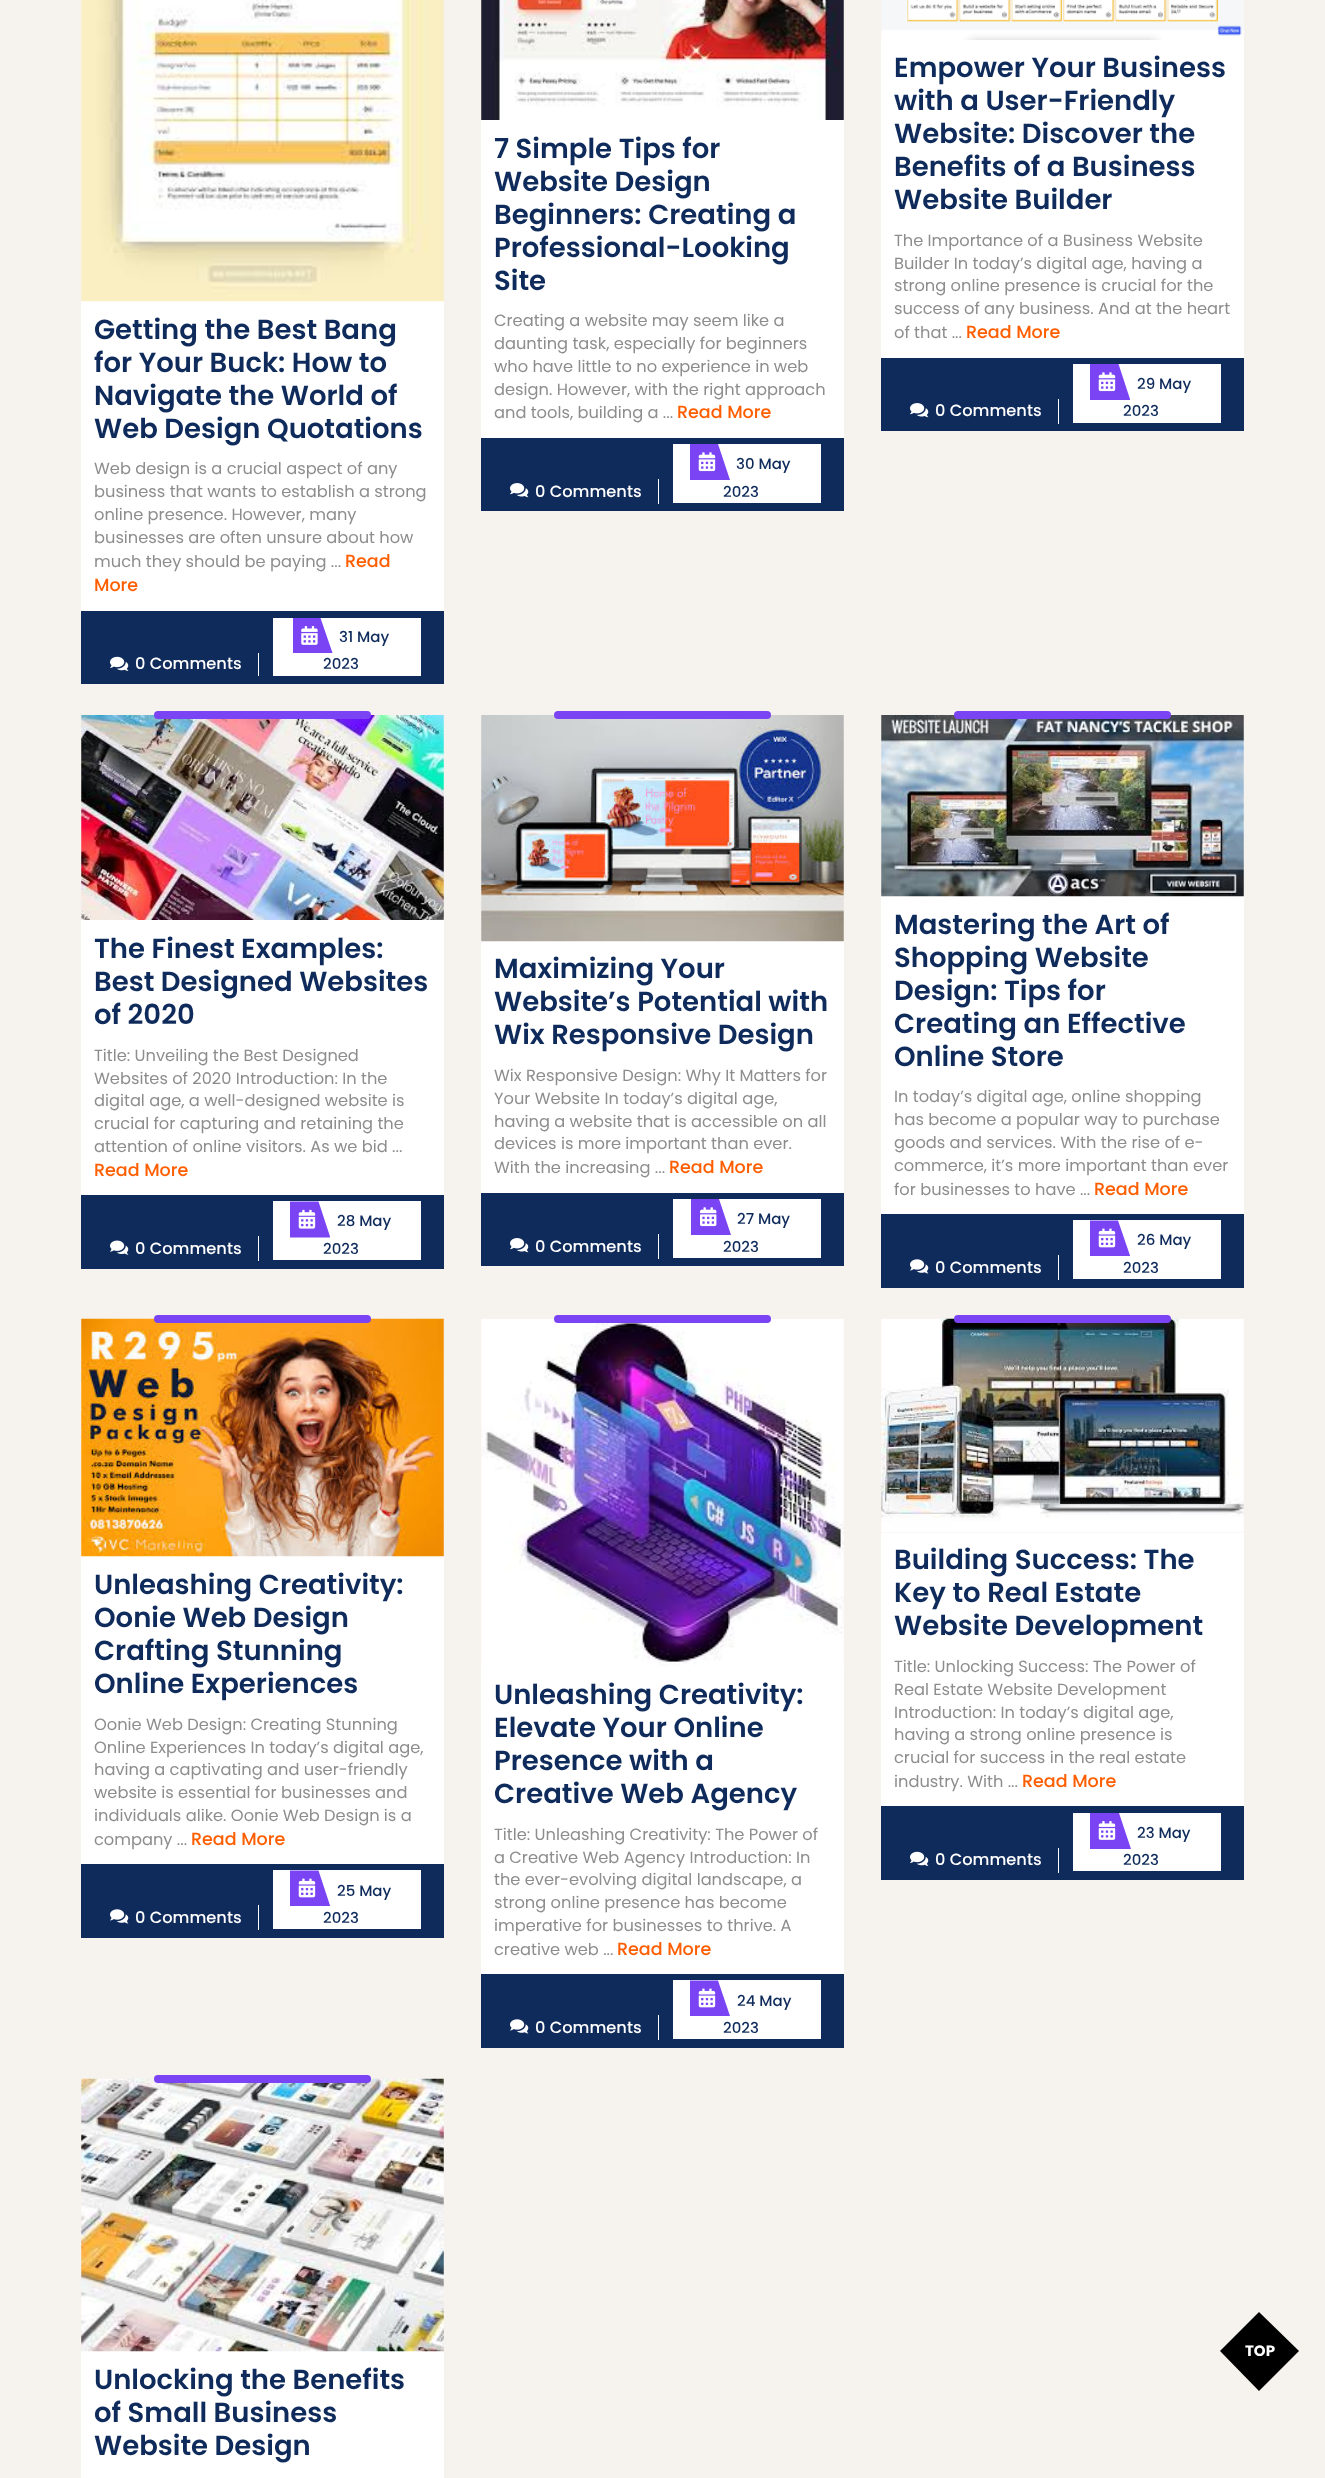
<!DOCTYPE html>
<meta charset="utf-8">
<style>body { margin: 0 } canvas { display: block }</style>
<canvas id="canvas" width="1325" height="2478"></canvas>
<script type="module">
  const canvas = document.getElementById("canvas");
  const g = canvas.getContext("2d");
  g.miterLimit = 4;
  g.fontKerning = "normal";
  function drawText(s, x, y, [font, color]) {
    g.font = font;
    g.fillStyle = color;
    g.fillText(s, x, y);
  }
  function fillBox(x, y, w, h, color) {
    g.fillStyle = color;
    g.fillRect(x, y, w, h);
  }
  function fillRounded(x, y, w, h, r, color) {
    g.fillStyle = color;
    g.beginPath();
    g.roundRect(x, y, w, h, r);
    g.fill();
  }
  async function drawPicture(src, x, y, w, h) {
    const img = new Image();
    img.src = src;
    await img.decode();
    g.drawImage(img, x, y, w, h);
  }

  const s1 = ["600 27.5px Poppins", "#0F2B5B"];
  const s2 = ["16.25px Poppins", "#8D8D8D"];
  const s3 = ["500 17.5px Poppins", "#FF5E00"];
  const s4 = ["500 16.25px Poppins", "#FFFFFF"];
  const s5 = ["500 15px Poppins", "#0F2B5B"];
  const s6 = ["bold 15px Poppins", "#FFFFFF"];

  fillBox(0, 0, 1325, 2478, "#F6F2ED");
  fillBox(81, 301, 363, 310, "#FFFFFF");
  await drawPicture("pic1.png", 81, 0, 363, 302);
  drawText("Getting the Best Bang", 94, 339, s1);
  drawText("for Your Buck: How to", 94, 372, s1);
  drawText("Navigate the World of", 94, 405, s1);
  drawText("Web Design Quotations", 94, 438, s1);
  drawText("Web design is a crucial aspect of any", 94, 474, s2);
  drawText("business that wants to establish a strong", 94, 497, s2);
  drawText("online presence. However, many", 94, 520, s2);
  drawText("businesses are often unsure about how", 94, 543, s2);
  drawText("much they should be paying ...", 94, 567, s2);
  drawText("Read", 345, 567, s3);
  drawText("More", 94, 591, s3);
  fillBox(81, 611, 363, 73, "#0F2B5B");
  fillBox(258, 653, 1, 23, "#FFFFFF");
  await drawPicture("pic2.png", 110, 656, 19, 15);
  drawText("0 Comments", 135, 669, s4);
  fillBox(273, 618, 148, 58, "#FFFFFF");
  g.fillStyle = "#7A44F4";
  g.beginPath();
  g.moveTo(293, 618);
  g.lineTo(320.5, 618);
  g.lineTo(332.5, 653);
  g.lineTo(293, 653);
  g.closePath();
  g.fill();
  await drawPicture("pic3.png", 301, 626, 17, 19);
  drawText("31 May", 339, 642, s5);
  drawText("2023", 323, 669, s5);
  await drawPicture("pic4.png", 481, 0, 363, 120);
  fillBox(481, 120, 363, 318, "#FFFFFF");
  drawText("7 Simple Tips for", 494, 158, s1);
  drawText("Website Design", 494, 191, s1);
  drawText("Beginners: Creating a", 494, 224, s1);
  drawText("Professional-Looking", 494, 257, s1);
  drawText("Site", 494, 290, s1);
  drawText("Creating a website may seem like a", 494, 326, s2);
  drawText("daunting task, especially for beginners", 494, 349, s2);
  drawText("who have little to no experience in web", 494, 372, s2);
  drawText("design. However, with the right approach", 494, 395, s2);
  drawText("and tools, building a ...", 494, 418, s2);
  drawText("Read More", 677, 418, s3);
  fillBox(481, 438, 363, 73, "#0F2B5B");
  fillBox(658, 479, 1, 25, "#FFFFFF");
  await drawPicture("pic5.png", 510, 483, 19, 15);
  drawText("0 Comments", 535, 497, s4);
  fillBox(673, 444, 148, 59, "#FFFFFF");
  g.fillStyle = "#7A44F4";
  g.beginPath();
  g.moveTo(690, 444);
  g.lineTo(718, 444);
  g.lineTo(730, 480);
  g.lineTo(690, 480);
  g.closePath();
  g.fill();
  await drawPicture("pic6.png", 698, 452, 18, 20);
  drawText("30 May", 736, 469, s5);
  drawText("2023", 723, 497, s5);
  await drawPicture("pic7.png", 881, 0, 363, 40);
  fillBox(881, 40, 363, 318, "#FFFFFF");
  drawText("Empower Your Business", 894, 77, s1);
  drawText("with a User-Friendly", 894, 110, s1);
  drawText("Website: Discover the", 894, 143, s1);
  drawText("Benefits of a Business", 894, 176, s1);
  drawText("Website Builder", 894, 209, s1);
  drawText("The Importance of a Business Website", 894, 246, s2);
  drawText("Builder In today’s digital age, having a", 894, 269, s2);
  drawText("strong online presence is crucial for the", 894, 291, s2);
  drawText("success of any business. And at the heart", 894, 314, s2);
  drawText("of that ...", 894, 338, s2);
  drawText("Read More", 966, 338, s3);
  fillBox(881, 358, 363, 73, "#0F2B5B");
  fillBox(1058, 399, 1, 25, "#FFFFFF");
  await drawPicture("pic5.png", 910, 403, 19, 15);
  drawText("0 Comments", 935, 416, s4);
  fillBox(1073, 364, 148, 59, "#FFFFFF");
  g.fillStyle = "#7A44F4";
  g.beginPath();
  g.moveTo(1090, 400);
  g.lineTo(1090, 364);
  g.lineTo(1118.5, 364);
  g.lineTo(1130, 399);
  g.lineTo(1130, 400);
  g.closePath();
  g.fill();
  await drawPicture("pic6.png", 1098, 372, 18, 20);
  drawText("29 May", 1137, 389, s5);
  drawText("2023", 1123, 416, s5);
  await drawPicture("pic8.png", 81, 715, 363, 205);
  fillRounded(154, 711, 217, 8, 4, "#7A44F4");
  fillBox(81, 920, 363, 275, "#FFFFFF");
  drawText("The Finest Examples:", 94, 958, s1);
  drawText("Best Designed Websites", 94, 991, s1);
  drawText("of 2020", 94, 1024, s1);
  drawText("Title: Unveiling the Best Designed", 94, 1061, s2);
  drawText("Websites of 2020 Introduction: In the", 94, 1084, s2);
  drawText("digital age, a well-designed website is", 94, 1106, s2);
  drawText("crucial for capturing and retaining the", 94, 1129, s2);
  drawText("attention of online visitors. As we bid ...", 94, 1152, s2);
  drawText("Read More", 94, 1176, s3);
  fillBox(81, 1195, 363, 74, "#0F2B5B");
  fillBox(258, 1236, 1, 25, "#FFFFFF");
  await drawPicture("pic9.png", 110, 1240, 19, 15);
  drawText("0 Comments", 135, 1254, s4);
  fillBox(273, 1201, 148, 59, "#FFFFFF");
  g.fillStyle = "#7A44F4";
  g.beginPath();
  g.moveTo(290, 1201.5);
  g.lineTo(318.5, 1201.5);
  g.lineTo(330, 1236.5);
  g.lineTo(330, 1237.5);
  g.lineTo(290, 1237.5);
  g.closePath();
  g.fill();
  await drawPicture("pic10.png", 298, 1209, 18, 20);
  drawText("28 May", 337, 1226, s5);
  drawText("2023", 323, 1254, s5);
  fillBox(481, 941, 363, 252, "#FFFFFF");
  await drawPicture("pic11.png", 481, 715, 363, 227);
  fillRounded(554, 711, 217, 8, 4, "#7A44F4");
  drawText("Maximizing Your", 494, 978, s1);
  drawText("Website’s Potential with", 494, 1011, s1);
  drawText("Wix Responsive Design", 494, 1044, s1);
  drawText("Wix Responsive Design: Why It Matters for", 494, 1081, s2);
  drawText("Your Website In today’s digital age,", 494, 1104, s2);
  drawText("having a website that is accessible on all", 494, 1127, s2);
  drawText("devices is more important than ever.", 494, 1149, s2);
  drawText("With the increasing ...", 494, 1173, s2);
  drawText("Read More", 669, 1173, s3);
  fillBox(481, 1193, 363, 73, "#0F2B5B");
  fillBox(658, 1234, 1, 25, "#FFFFFF");
  await drawPicture("pic5.png", 510, 1238, 19, 15);
  drawText("0 Comments", 535, 1252, s4);
  fillBox(673, 1199, 148, 59, "#FFFFFF");
  g.fillStyle = "#7A44F4";
  g.beginPath();
  g.moveTo(731, 1235);
  g.lineTo(691, 1235);
  g.lineTo(691, 1199);
  g.lineTo(719, 1199);
  g.closePath();
  g.fill();
  await drawPicture("pic12.png", 700, 1207, 17, 20);
  drawText("27 May", 737, 1224, s5);
  drawText("2023", 723, 1252, s5);
  fillBox(881, 896, 363, 318, "#FFFFFF");
  await drawPicture("pic13.png", 881, 715, 363, 182);
  fillRounded(954, 711, 217, 8, 4, "#7A44F4");
  drawText("Mastering the Art of", 894, 934, s1);
  drawText("Shopping Website", 894, 967, s1);
  drawText("Design: Tips for", 894, 1000, s1);
  drawText("Creating an Effective", 894, 1033, s1);
  drawText("Online Store", 894, 1066, s1);
  drawText("In today’s digital age, online shopping", 894, 1102, s2);
  drawText("has become a popular way to purchase", 894, 1125, s2);
  drawText("goods and services. With the rise of e-", 894, 1148, s2);
  drawText("commerce, it’s more important than ever", 894, 1171, s2);
  drawText("for businesses to have ...", 894, 1195, s2);
  drawText("Read More", 1094, 1195, s3);
  fillBox(881, 1214, 363, 74, "#0F2B5B");
  fillBox(1058, 1255, 1, 25, "#FFFFFF");
  await drawPicture("pic14.png", 910, 1259, 19, 15);
  drawText("0 Comments", 935, 1273, s4);
  fillBox(1073, 1220, 148, 59, "#FFFFFF");
  g.fillStyle = "#7A44F4";
  g.beginPath();
  g.moveTo(1090, 1220.5);
  g.lineTo(1118, 1220.5);
  g.lineTo(1130, 1255.5);
  g.lineTo(1130, 1256);
  g.lineTo(1090, 1256);
  g.closePath();
  g.fill();
  await drawPicture("pic15.png", 1098, 1228, 18, 20);
  drawText("26 May", 1137, 1245, s5);
  drawText("2023", 1123, 1273, s5);
  fillBox(81, 1556, 363, 308, "#FFFFFF");
  await drawPicture("pic16.png", 81, 1318, 363, 239);
  fillRounded(154, 1315, 217, 8, 4, "#7A44F4");
  drawText("Unleashing Creativity:", 94, 1594, s1);
  drawText("Oonie Web Design", 94, 1627, s1);
  drawText("Crafting Stunning", 94, 1660, s1);
  drawText("Online Experiences", 94, 1693, s1);
  drawText("Oonie Web Design: Creating Stunning", 94, 1730, s2);
  drawText("Online Experiences In today’s digital age,", 94, 1753, s2);
  drawText("having a captivating and user-friendly", 94, 1775, s2);
  drawText("website is essential for businesses and", 94, 1798, s2);
  drawText("individuals alike. Oonie Web Design is a", 94, 1821, s2);
  drawText("company ...", 94, 1845, s2);
  drawText("Read More", 191, 1845, s3);
  fillBox(81, 1864, 363, 74, "#0F2B5B");
  fillBox(258, 1905, 1, 25, "#FFFFFF");
  await drawPicture("pic14.png", 110, 1909, 19, 15);
  drawText("0 Comments", 135, 1923, s4);
  fillBox(273, 1870, 148, 59, "#FFFFFF");
  g.fillStyle = "#7A44F4";
  g.beginPath();
  g.moveTo(290, 1870.5);
  g.lineTo(318.5, 1870.5);
  g.lineTo(330, 1905.5);
  g.lineTo(330, 1906);
  g.lineTo(290, 1906);
  g.closePath();
  g.fill();
  await drawPicture("pic15.png", 298, 1878, 18, 20);
  drawText("25 May", 337, 1896, s5);
  drawText("2023", 323, 1923, s5);
  await drawPicture("pic17.png", 481, 1318, 363, 348);
  fillRounded(554, 1315, 217, 8, 4, "#7A44F4");
  fillBox(481, 1666, 363, 308, "#FFFFFF");
  drawText("Unleashing Creativity:", 494, 1704, s1);
  drawText("Elevate Your Online", 494, 1737, s1);
  drawText("Presence with a", 494, 1770, s1);
  drawText("Creative Web Agency", 494, 1803, s1);
  drawText("Title: Unleashing Creativity: The Power of", 494, 1840, s2);
  drawText("a Creative Web Agency Introduction: In", 494, 1863, s2);
  drawText("the ever-evolving digital landscape, a", 494, 1885, s2);
  drawText("strong online presence has become", 494, 1908, s2);
  drawText("imperative for businesses to thrive. A", 494, 1931, s2);
  drawText("creative web ...", 494, 1955, s2);
  drawText("Read More", 617, 1955, s3);
  fillBox(481, 1974, 363, 74, "#0F2B5B");
  fillBox(658, 2015, 1, 25, "#FFFFFF");
  await drawPicture("pic14.png", 510, 2019, 19, 15);
  drawText("0 Comments", 535, 2033, s4);
  fillBox(673, 1980, 148, 59, "#FFFFFF");
  g.fillStyle = "#7A44F4";
  g.beginPath();
  g.moveTo(690, 1980.5);
  g.lineTo(718, 1980.5);
  g.lineTo(730, 2016);
  g.lineTo(690, 2016);
  g.closePath();
  g.fill();
  await drawPicture("pic15.png", 698, 1988, 18, 20);
  drawText("24 May", 737, 2006, s5);
  drawText("2023", 723, 2033, s5);
  await drawPicture("pic18.png", 881, 1318, 363, 215);
  fillRounded(954, 1315, 217, 8, 4, "#7A44F4");
  fillBox(881, 1533, 363, 273, "#FFFFFF");
  drawText("Building Success: The", 894, 1569, s1);
  drawText("Key to Real Estate", 894, 1602, s1);
  drawText("Website Development", 894, 1635, s1);
  drawText("Title: Unlocking Success: The Power of", 894, 1672, s2);
  drawText("Real Estate Website Development", 894, 1695, s2);
  drawText("Introduction: In today’s digital age,", 894, 1718, s2);
  drawText("having a strong online presence is", 894, 1740, s2);
  drawText("crucial for success in the real estate", 894, 1763, s2);
  drawText("industry. With ...", 894, 1787, s2);
  drawText("Read More", 1022, 1787, s3);
  fillBox(881, 1806, 363, 74, "#0F2B5B");
  fillBox(1058, 1848, 1, 25, "#FFFFFF");
  await drawPicture("pic2.png", 910, 1851, 19, 15);
  drawText("0 Comments", 935, 1865, s4);
  fillBox(1073, 1813, 148, 58, "#FFFFFF");
  g.fillStyle = "#7A44F4";
  g.beginPath();
  g.moveTo(1090, 1849);
  g.lineTo(1090, 1813);
  g.lineTo(1119, 1813);
  g.lineTo(1131, 1849);
  g.closePath();
  g.fill();
  await drawPicture("pic19.png", 1098, 1821, 18, 19);
  drawText("23 May", 1137, 1838, s5);
  drawText("2023", 1123, 1865, s5);
  fillBox(81, 2351, 363, 127, "#FFFFFF");
  await drawPicture("pic20.png", 81, 2078, 363, 274);
  fillRounded(154, 2075, 217, 8, 4, "#7A44F4");
  drawText("Unlocking the Benefits", 94, 2389, s1);
  drawText("of Small Business", 94, 2422, s1);
  drawText("Website Design", 94, 2455, s1);
  g.fillStyle = "#000000";
  g.beginPath();
  g.moveTo(1220, 2351);
  g.lineTo(1259, 2312);
  g.lineTo(1299, 2351);
  g.lineTo(1259, 2391);
  g.closePath();
  g.fill();
  drawText("TOP", 1245, 2356, s6);
</script>
